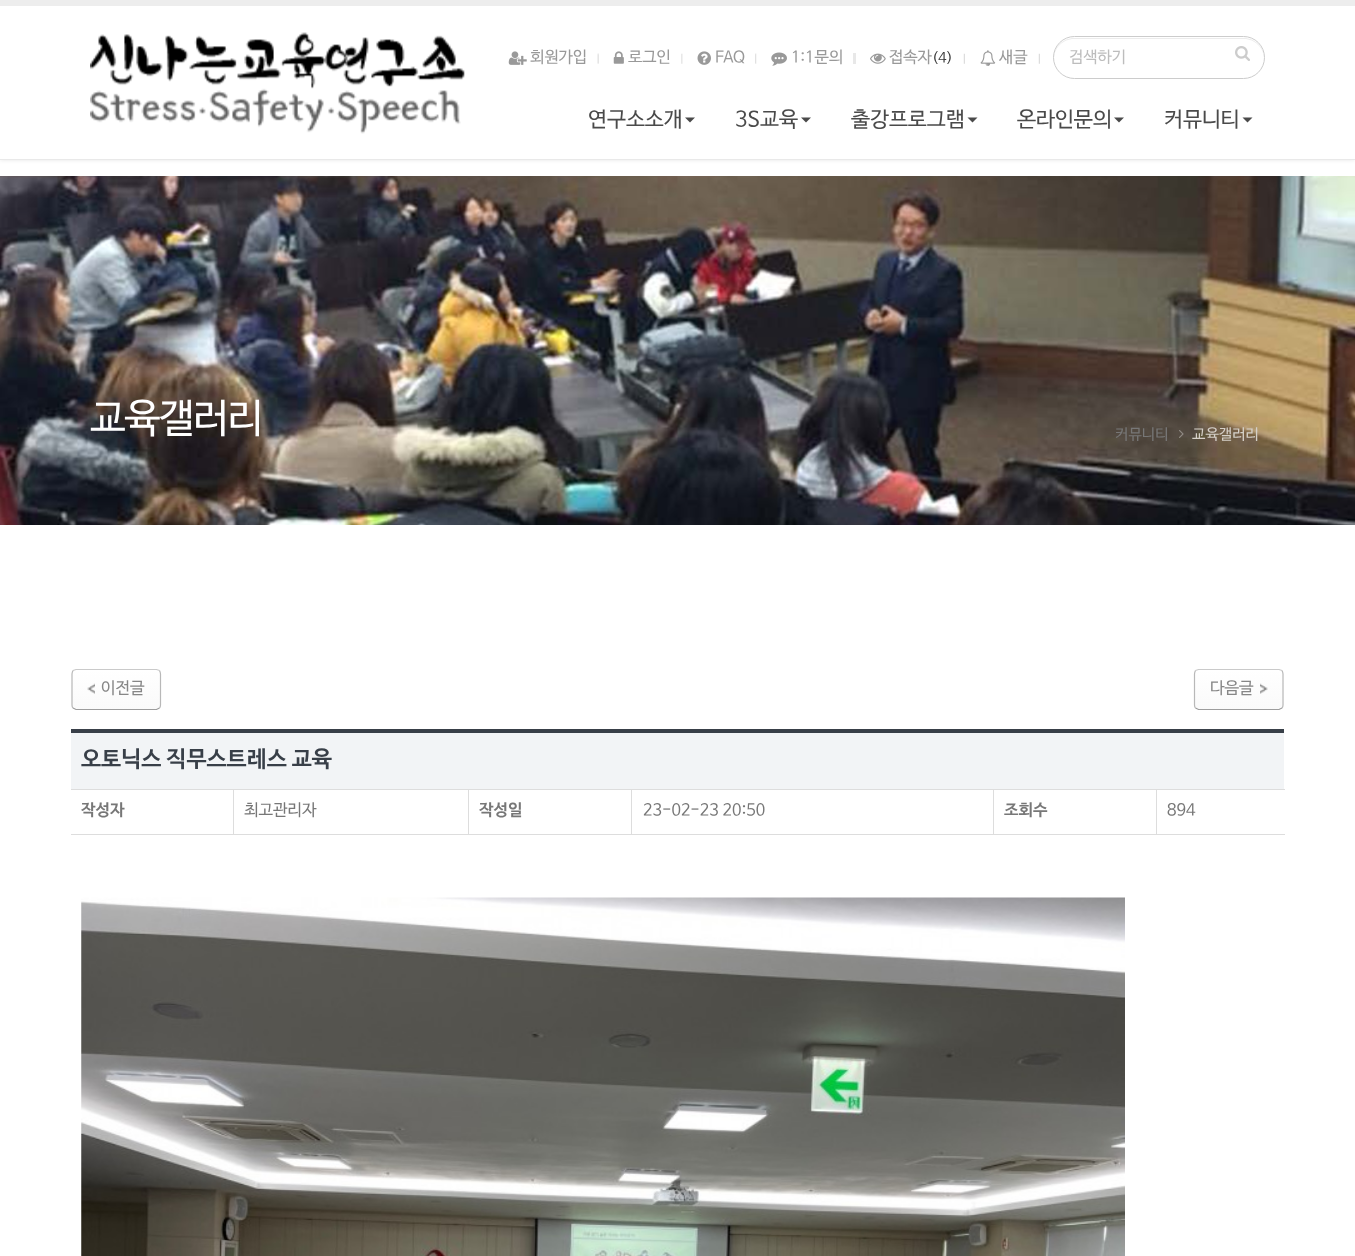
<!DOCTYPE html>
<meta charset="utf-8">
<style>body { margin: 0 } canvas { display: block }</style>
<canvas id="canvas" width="1355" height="1256"></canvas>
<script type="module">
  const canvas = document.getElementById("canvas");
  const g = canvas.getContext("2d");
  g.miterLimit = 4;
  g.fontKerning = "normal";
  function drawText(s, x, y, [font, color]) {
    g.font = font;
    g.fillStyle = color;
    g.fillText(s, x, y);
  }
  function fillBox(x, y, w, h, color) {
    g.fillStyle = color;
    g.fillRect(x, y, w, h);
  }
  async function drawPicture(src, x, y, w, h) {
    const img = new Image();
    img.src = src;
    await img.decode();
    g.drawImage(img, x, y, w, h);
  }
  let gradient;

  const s1 = ["16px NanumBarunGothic", "#999999"];
  const s2 = ["14px NanumBarunGothic", "#3C3C3C"];
  const s3 = ["16px NanumBarunGothic", "#BDBDBD"];
  const s4 = ["21.25px NanumBarunGothic", "#4A4A4A"];
  const s5 = ["40px NanumBarunGothic", "#FFFFFF"];
  const s6 = ["15px NanumBarunGothic", "#777777"];
  const s7 = ["15px NanumBarunGothic", "#D5D0C8"];
  const s8 = ["16.25px NanumBarunGothic", "#868686"];
  const s9 = ["bold 22.5px NanumBarunGothic", "#383F48"];
  const s10 = ["bold 16.25px NanumBarunGothic", "#777777"];
  const s11 = ["16.25px NanumBarunGothic", "#777777"];

  fillBox(0, 0, 1355, 1256, "#FFFFFF");
  g.fillStyle = "rgba(0, 0, 0, 0.1)";
  g.filter = "blur(2px)";
  g.beginPath();
  g.rect(0, 0, 1355, 160);
  g.fill();
  g.filter = "none";
  fillBox(0, 6, 1355, 153, "#FFFFFF");
  fillBox(0, 0, 1355, 6, "#EDEDED");
  fillBox(0, 159, 1355, 1, "#E9E9E9");
  await drawPicture("pic1.png", 90, 32, 375, 102);
  await drawPicture("pic2.png", 597, 53, 2, 11);
  await drawPicture("pic3.png", 508, 51, 19, 14);
  drawText("회원가입", 530, 62, s1);
  await drawPicture("pic4.png", 681, 53, 2, 11);
  await drawPicture("pic5.png", 613, 51, 11, 13);
  drawText("로그인", 628, 62, s1);
  await drawPicture("pic6.png", 755, 53, 2, 11);
  await drawPicture("pic7.png", 697, 51, 14, 14);
  drawText("FAQ", 715, 62, s1);
  fillBox(853, 53, 3, 11, "#E8E8E8");
  await drawPicture("pic8.png", 771, 52, 16, 14);
  drawText("1:1문의", 791, 62, s1);
  await drawPicture("pic9.png", 963, 53, 2, 11);
  await drawPicture("pic10.png", 870, 53, 16, 11);
  drawText("접속자", 889, 62, s1);
  drawText("(4)", 932, 62, s2);
  await drawPicture("pic9.png", 1038, 53, 2, 11);
  await drawPicture("pic11.png", 980, 50, 16, 16);
  drawText("새글", 999, 62, s1);
  g.fillStyle = "#ECECEC";
  g.beginPath();
  g.moveTo(1074, 39);
  g.lineTo(1244, 39);
  g.bezierCurveTo(1255, 39, 1264, 48, 1264, 59);
  g.lineTo(1264, 58);
  g.bezierCurveTo(1264, 47, 1255, 38, 1244, 38);
  g.lineTo(1074, 38);
  g.bezierCurveTo(1063, 38, 1054, 47, 1054, 58);
  g.lineTo(1054, 59);
  g.bezierCurveTo(1054, 48, 1063, 39, 1074, 39);
  g.closePath();
  g.fill();
  g.beginPath();
  g.roundRect(1053.5, 36.5, 211, 42, 21);
  g.strokeStyle = "#CCCCCC";
  g.stroke();
  drawText("검색하기", 1069, 62, s3);
  await drawPicture("pic12.png", 1235, 46, 15, 15);
  drawText("연구소소개", 588, 126, s4);
  g.beginPath();
  g.moveTo(685, 117.5);
  g.lineTo(695, 117.5);
  g.lineTo(690, 122.5);
  g.closePath();
  g.fill();
  drawText("3S교육", 735, 126, s4);
  g.beginPath();
  g.moveTo(801, 117.5);
  g.lineTo(811, 117.5);
  g.lineTo(806, 122.5);
  g.closePath();
  g.fill();
  drawText("출강프로그램", 851, 126, s4);
  g.beginPath();
  g.moveTo(967.5, 117.5);
  g.lineTo(977.5, 117.5);
  g.lineTo(972.5, 122.5);
  g.closePath();
  g.fill();
  drawText("온라인문의", 1017, 126, s4);
  g.beginPath();
  g.moveTo(1114, 117.5);
  g.lineTo(1124, 117.5);
  g.lineTo(1119, 122.5);
  g.closePath();
  g.fill();
  drawText("커뮤니티", 1164, 126, s4);
  g.beginPath();
  g.moveTo(1242.5, 117.5);
  g.lineTo(1252.5, 117.5);
  g.lineTo(1247.5, 122.5);
  g.closePath();
  g.fill();
  await drawPicture("pic13.png", 0, 176, 1355, 349);
  g.letterSpacing = "-1.25px";
  drawText("교육갤러리", 90, 431, s5);
  g.letterSpacing = "0px";
  drawText("커뮤니티", 1115, 439, s6);
  await drawPicture("pic14.png", 1179, 430, 5, 8);
  drawText("교육갤러리", 1192, 439, s7);
  g.save();
  g.beginPath();
  g.roundRect(71, 669, 90, 41, 5);
  g.clip();
  gradient = g.createLinearGradient(116, 670, 116, 709);
  gradient.addColorStop(0, "#FFFFFF");
  gradient.addColorStop(1, "#FAFAFA");
  g.fillStyle = gradient;
  g.fillRect(71, 670, 90, 39);
  g.restore();
  g.beginPath();
  g.moveTo(73, 670.5);
  g.lineTo(76, 669.5);
  g.lineTo(156.5, 669.5);
  g.lineTo(159.5, 670.5);
  g.strokeStyle = "#CACACA";
  g.lineWidth = 1.2;
  g.stroke();
  g.beginPath();
  g.moveTo(159.5, 670.5);
  g.bezierCurveTo(160, 671.5, 160.5, 672.5, 160.5, 674);
  g.lineTo(160.5, 705);
  g.bezierCurveTo(160.5, 706, 160, 707.5, 159.5, 708);
  g.strokeStyle = "#B8B8B8";
  g.stroke();
  g.beginPath();
  g.moveTo(159.5, 708);
  g.lineTo(156.5, 709.5);
  g.lineTo(76, 709.5);
  g.lineTo(73, 708);
  g.strokeStyle = "#9D9D9D";
  g.stroke();
  g.beginPath();
  g.moveTo(73, 708);
  g.bezierCurveTo(72.5, 707.5, 72, 706, 72, 705);
  g.lineTo(72, 674);
  g.bezierCurveTo(72, 672.5, 72.5, 671.5, 73, 670.5);
  g.strokeStyle = "#B8B8B8";
  g.stroke();
  await drawPicture("pic15.png", 87, 683, 8, 11);
  drawText("이전글", 101, 693, s8);
  g.save();
  g.beginPath();
  g.roundRect(1194, 669, 90, 41, 5);
  g.clip();
  gradient = g.createLinearGradient(1239, 670, 1239, 709);
  gradient.addColorStop(0, "#FFFFFF");
  gradient.addColorStop(1, "#FAFAFA");
  g.fillStyle = gradient;
  g.fillRect(1194, 670, 90, 39);
  g.restore();
  g.beginPath();
  g.moveTo(1195.5, 670.5);
  g.lineTo(1198.5, 669.5);
  g.lineTo(1279, 669.5);
  g.lineTo(1282, 670.5);
  g.strokeStyle = "#CACACA";
  g.stroke();
  g.beginPath();
  g.moveTo(1282, 670.5);
  g.bezierCurveTo(1282.5, 671.5, 1283, 672.5, 1283, 674);
  g.lineTo(1283, 705);
  g.bezierCurveTo(1283, 706, 1282.5, 707.5, 1282, 708);
  g.strokeStyle = "#B8B8B8";
  g.stroke();
  g.beginPath();
  g.moveTo(1282, 708);
  g.lineTo(1279, 709.5);
  g.lineTo(1198.5, 709.5);
  g.lineTo(1195.5, 708);
  g.strokeStyle = "#9D9D9D";
  g.stroke();
  g.beginPath();
  g.moveTo(1195.5, 708);
  g.bezierCurveTo(1195, 707.5, 1194.5, 706, 1194.5, 705);
  g.lineTo(1194.5, 674);
  g.bezierCurveTo(1194.5, 672.5, 1195, 671.5, 1195.5, 670.5);
  g.strokeStyle = "#B8B8B8";
  g.stroke();
  drawText("다음글", 1210, 693, s8);
  await drawPicture("pic16.png", 1260, 683, 8, 11);
  fillBox(71, 729, 1213, 4, "#383F48");
  fillBox(71, 733, 1213, 56, "#F2F4F6");
  drawText("오토닉스 직무스트레스 교육", 81, 766, s9);
  fillBox(993, 789, 292, 1, "#DDDDDD");
  fillBox(71, 834, 1214, 1, "#DDDDDD");
  fillBox(993, 789, 1, 46, "#DDDDDD");
  fillBox(468, 789, 526, 1, "#DDDDDD");
  fillBox(468, 789, 1, 46, "#DDDDDD");
  fillBox(71, 789, 398, 1, "#DDDDDD");
  fillBox(233, 789, 1, 46, "#DDDDDD");
  drawText("작성자", 81, 815, s10);
  drawText("최고관리자", 244, 815, s11);
  fillBox(631, 789, 1, 46, "#DDDDDD");
  drawText("작성일", 479, 815, s10);
  drawText("23-02-23 20:50", 643, 815, s11);
  fillBox(1156, 789, 1, 46, "#DDDDDD");
  drawText("조회수", 1004, 815, s10);
  drawText("894", 1167, 815, s11);
  await drawPicture("pic17.png", 81, 897, 1044, 359);
</script>
